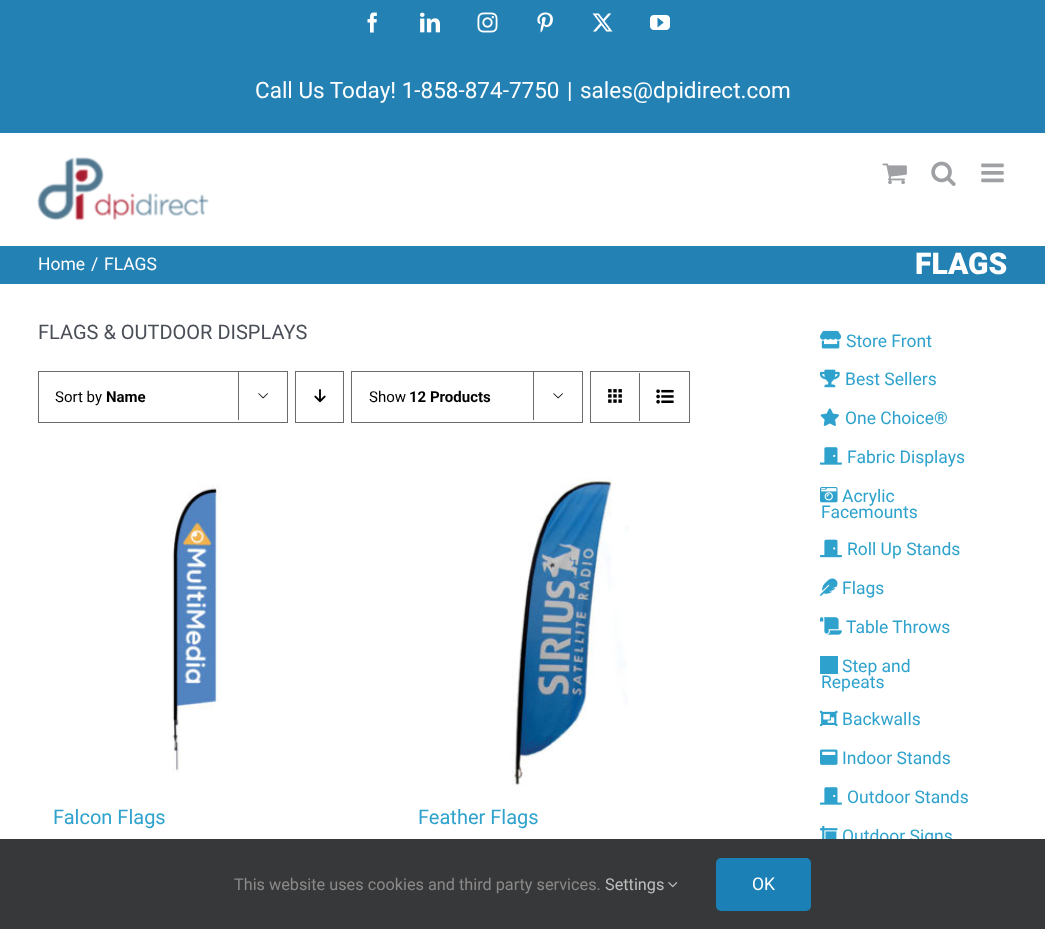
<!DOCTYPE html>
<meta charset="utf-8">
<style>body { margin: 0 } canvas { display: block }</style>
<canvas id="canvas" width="1045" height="929"></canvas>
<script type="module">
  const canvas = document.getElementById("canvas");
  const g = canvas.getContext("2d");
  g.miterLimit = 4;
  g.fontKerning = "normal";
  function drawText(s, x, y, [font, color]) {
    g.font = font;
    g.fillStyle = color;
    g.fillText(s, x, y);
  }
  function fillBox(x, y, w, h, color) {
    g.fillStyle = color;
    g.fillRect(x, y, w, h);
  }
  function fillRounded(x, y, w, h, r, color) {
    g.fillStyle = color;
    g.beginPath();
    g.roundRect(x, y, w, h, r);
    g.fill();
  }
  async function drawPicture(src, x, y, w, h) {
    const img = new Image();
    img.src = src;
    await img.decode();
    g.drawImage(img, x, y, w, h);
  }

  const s1 = ["22.5px Roboto", "#FFFFFF"];
  const s2 = ["17.5px Roboto", "#FFFFFF"];
  const s3 = ["900 30px Roboto", "#FFFFFF"];
  const s4 = ["20px Roboto", "#4A4E57"];
  const s5 = ["15px Roboto", "#000000"];
  const s6 = ["bold 15px Roboto", "#000000"];
  const s7 = ["20px Roboto", "#2EA2CC"];
  const s8 = ["17.5px Roboto", "#2EA2CC"];
  const s9 = ["16.25px Roboto", "#8C8989"];
  const s10 = ["16.25px Roboto", "#BFBFBF"];

  fillBox(0, 0, 1045, 929, "#FFFFFF");
  fillBox(0, 0, 1045, 133, "#2381B4");
  await drawPicture("pic1.png", 367, 12, 10, 21);
  await drawPicture("pic2.png", 420, 12, 20, 21);
  await drawPicture("pic3.png", 477, 12, 21, 21);
  await drawPicture("pic4.png", 537, 12, 16, 21);
  await drawPicture("pic5.png", 592, 13, 21, 19);
  await drawPicture("pic6.png", 650, 15, 20, 15);
  drawText("Call Us Today! 1-858-874-7750", 255, 98, s1);
  drawText("|", 567, 98, s1);
  drawText("sales@dpidirect.com", 580, 98, s1);
  await drawPicture("pic7.png", 37, 157, 172, 64);
  await drawPicture("pic8.png", 882, 163, 25, 22);
  await drawPicture("pic9.png", 931, 161, 25, 25);
  await drawPicture("pic10.png", 981, 163, 23, 20);
  fillBox(0, 246, 1045, 38, "#2381B4");
  drawText("Home", 38, 270, s2);
  drawText("/", 91, 270, s2);
  drawText("FLAGS", 104, 270, s2);
  drawText("FLAGS", 915, 274, s3);
  drawText("FLAGS & OUTDOOR DISPLAYS", 38, 339, s4);
  g.strokeStyle = "#6B6B6B";
  g.strokeRect(38.5, 371.5, 249, 51);
  drawText("Sort by", 55, 402, s5);
  drawText("Name", 106, 402, s6);
  fillBox(238, 371, 1, 49, "#6B6B6B");
  await drawPicture("pic11.png", 258, 393, 10, 6);
  g.strokeRect(295.5, 371.5, 48, 51);
  await drawPicture("pic12.png", 314, 389, 12, 14);
  g.strokeRect(351.5, 371.5, 231, 51);
  drawText("Show", 369, 402, s5);
  drawText("12 Products", 409, 402, s6);
  fillBox(533, 371, 1, 49, "#6B6B6B");
  await drawPicture("pic11.png", 553, 393, 10, 6);
  g.strokeRect(590.5, 371.5, 99, 51);
  fillBox(639, 373, 1, 48, "#6B6B6B");
  await drawPicture("pic13.png", 608, 389, 14, 14);
  await drawPicture("pic14.png", 656, 389, 18, 15);
  await drawPicture("pic15.png", 172, 484, 50, 289);
  drawText("Falcon Flags", 53, 824, s7);
  await drawPicture("pic16.png", 511, 477, 118, 309);
  drawText("Feather Flags", 418, 824, s7);
  await drawPicture("pic17.png", 820, 330, 22, 19);
  drawText("Store Front", 846, 347, s8);
  await drawPicture("pic18.png", 820, 369, 20, 19);
  drawText("Best Sellers", 845, 385, s8);
  await drawPicture("pic19.png", 820, 408, 19, 18);
  drawText("One Choice®", 845, 424, s8);
  await drawPicture("pic20.png", 820, 447, 22, 18);
  drawText("Fabric Displays", 847, 463, s8);
  await drawPicture("pic21.png", 820, 487, 18, 16);
  drawText("Acrylic", 842, 502, s8);
  drawText("Facemounts", 821, 518, s8);
  await drawPicture("pic22.png", 820, 539, 22, 19);
  drawText("Roll Up Stands", 847, 555, s8);
  await drawPicture("pic23.png", 820, 578, 18, 18);
  drawText("Flags", 842, 594, s8);
  await drawPicture("pic24.png", 820, 617, 22, 18);
  drawText("Table Throws", 846, 633, s8);
  fillBox(820, 656, 18, 18, "#2EA2CC");
  drawText("Step and", 842, 672, s8);
  drawText("Repeats", 821, 688, s8);
  await drawPicture("pic25.png", 820, 710, 18, 17);
  drawText("Backwalls", 842, 725, s8);
  await drawPicture("pic26.png", 820, 749, 18, 16);
  drawText("Indoor Stands", 842, 764, s8);
  await drawPicture("pic20.png", 820, 787, 22, 18);
  drawText("Outdoor Stands", 847, 803, s8);
  await drawPicture("pic27.png", 820, 825, 18, 14);
  drawText("Outdoor Signs", 842, 842, s8);
  fillBox(0, 839, 1045, 90, "#363839");
  drawText("This website uses cookies and third party services.", 234, 890, s9);
  drawText("Settings", 605, 890, s10);
  await drawPicture("pic28.png", 668, 882, 10, 6);
  fillRounded(716, 858, 95, 53, 5, "#1A80B6");
  drawText("OK", 752, 890, s2);
</script>
